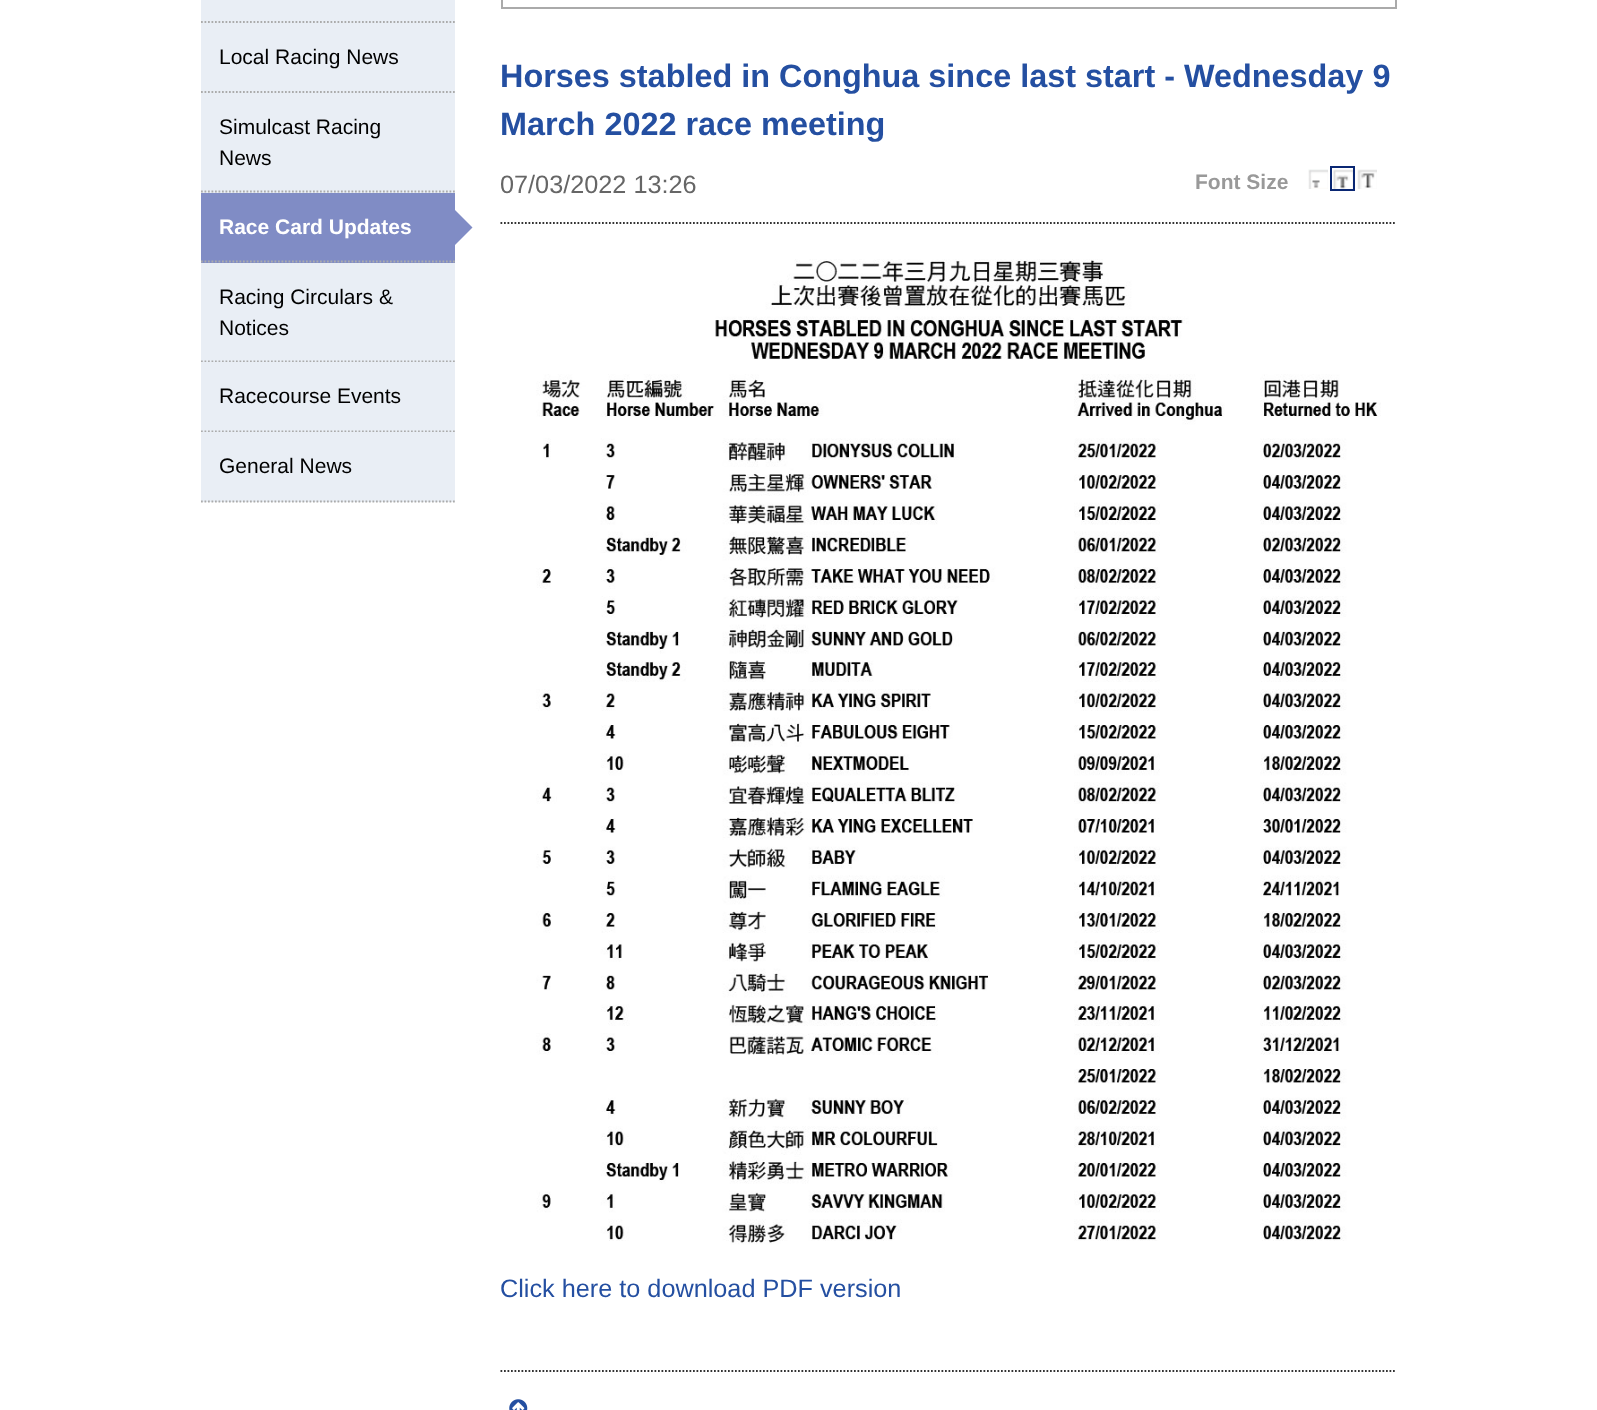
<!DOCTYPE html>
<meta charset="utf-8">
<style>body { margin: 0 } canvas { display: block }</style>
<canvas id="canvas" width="1597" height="1410"></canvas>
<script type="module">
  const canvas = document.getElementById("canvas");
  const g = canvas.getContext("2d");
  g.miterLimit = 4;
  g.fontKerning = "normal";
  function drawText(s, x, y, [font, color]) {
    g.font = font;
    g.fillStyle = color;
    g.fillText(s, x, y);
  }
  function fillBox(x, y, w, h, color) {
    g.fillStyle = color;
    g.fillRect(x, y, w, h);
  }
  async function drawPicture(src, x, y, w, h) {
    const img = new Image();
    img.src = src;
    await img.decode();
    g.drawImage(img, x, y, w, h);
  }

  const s1 = ["21px Liberation Sans", "#000000"];
  const s2 = ["bold 21px Liberation Sans", "#FFFFFF"];
  const s3 = ["bold 32.4px Liberation Sans", "#244FA1"];
  const s4 = ["25.25px Liberation Sans", "#666666"];
  const s5 = ["bold 21px Liberation Sans", "#999999"];
  const s6 = ["25.25px Liberation Sans", "#244FA1"];

  fillBox(0, 0, 1597, 1410, "#FFFFFF");
  fillBox(201, 0, 254, 193, "#E9EEF5");
  g.beginPath();
  g.moveTo(201, 22);
  g.lineTo(455, 22);
  g.strokeStyle = "#ABABAB";
  g.lineWidth = 1.8;
  g.setLineDash([1.75, 1.75]);
  g.stroke();
  g.beginPath();
  g.moveTo(201, 92);
  g.lineTo(455, 92);
  g.stroke();
  drawText("Local Racing News", 219, 64, s1);
  g.beginPath();
  g.moveTo(201, 191.5);
  g.lineTo(455, 191.5);
  g.stroke();
  drawText("Simulcast Racing", 219, 134, s1);
  drawText("News", 219, 165, s1);
  fillBox(201, 193, 254, 70, "#808CC5");
  g.beginPath();
  g.moveTo(201, 261.5);
  g.lineTo(455, 261.5);
  g.stroke();
  drawText("Race Card Updates", 219, 234, s2);
  g.fillStyle = "#808CC5";
  g.beginPath();
  g.moveTo(455, 245);
  g.lineTo(455, 210);
  g.lineTo(472.5, 227.5);
  g.closePath();
  g.fill();
  fillBox(201, 263, 254, 99, "#E9EEF5");
  g.beginPath();
  g.moveTo(201, 361.5);
  g.lineTo(455, 361.5);
  g.stroke();
  drawText("Racing Circulars &", 219, 304, s1);
  drawText("Notices", 219, 335, s1);
  fillBox(201, 362, 254, 70, "#E9EEF5");
  g.beginPath();
  g.moveTo(201, 431.5);
  g.lineTo(455, 431.5);
  g.stroke();
  drawText("Racecourse Events", 219, 403, s1);
  fillBox(201, 432, 254, 70, "#E9EEF5");
  g.beginPath();
  g.moveTo(201, 501.5);
  g.lineTo(455, 501.5);
  g.stroke();
  drawText("General News", 219, 473, s1);
  g.strokeStyle = "#AAAAAA";
  g.lineWidth = 2;
  g.setLineDash([]);
  g.strokeRect(502, -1, 894, 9);
  g.beginPath();
  g.moveTo(500.5, 223);
  g.lineTo(1396.5, 223);
  g.strokeStyle = "#333333";
  g.lineWidth = 1.8;
  g.setLineDash([1.75, 1.75]);
  g.stroke();
  drawText("Horses stabled in Conghua since last start - Wednesday 9", 500, 87, s3);
  drawText("March 2022 race meeting", 500, 135, s3);
  drawText("07/03/2022 13:26", 500, 193, s4);
  drawText("Font Size", 1195, 189, s5);
  await drawPicture("pic1.png", 1308, 169, 20, 20);
  await drawPicture("pic2.png", 1333, 169, 20, 20);
  g.strokeStyle = "#0A2773";
  g.lineWidth = 2;
  g.setLineDash([]);
  g.strokeRect(1331, 167, 23, 23);
  await drawPicture("pic3.png", 1357, 169, 20, 20);
  g.beginPath();
  g.moveTo(500.5, 1371);
  g.lineTo(1396.5, 1371);
  g.strokeStyle = "#333333";
  g.lineWidth = 1.8;
  g.setLineDash([1.75, 1.75]);
  g.stroke();
  await drawPicture("pic4.png", 536, 259, 845, 986);
  drawText("Click here to download PDF version", 500, 1297, s6);
  await drawPicture("pic5.png", 509, 1399, 19, 11);
</script>
